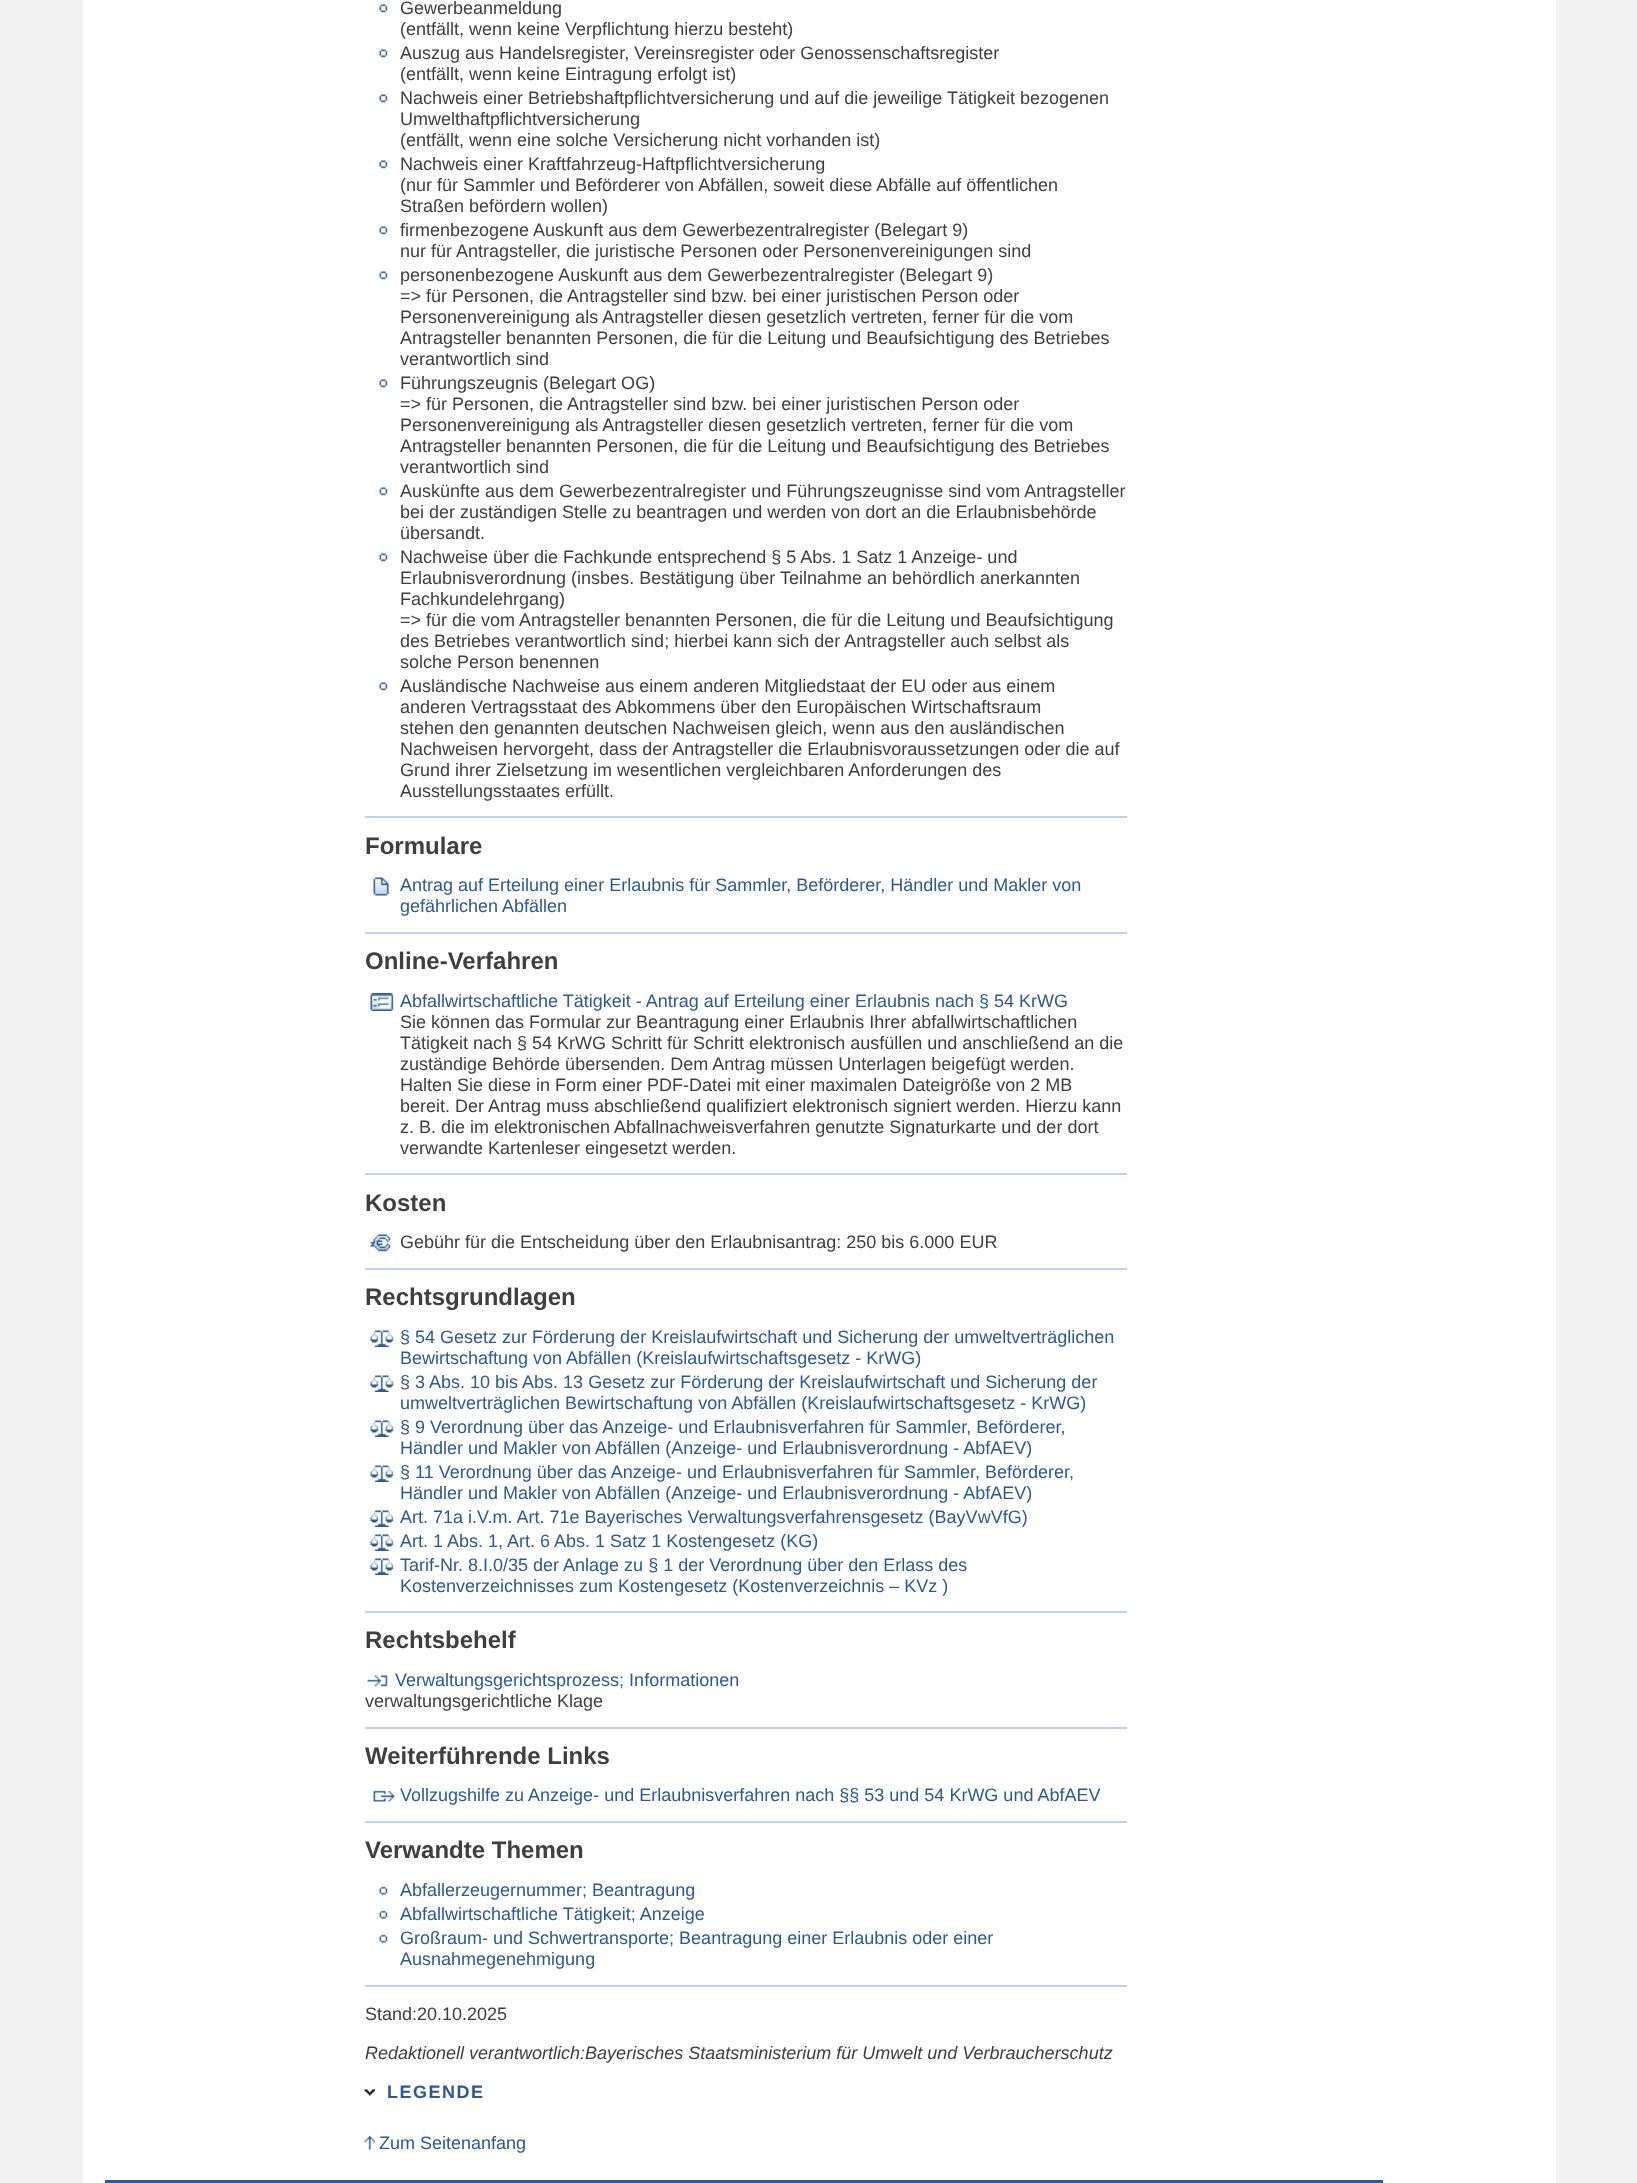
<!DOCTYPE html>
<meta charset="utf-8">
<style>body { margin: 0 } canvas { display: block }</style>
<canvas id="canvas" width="1637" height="2183"></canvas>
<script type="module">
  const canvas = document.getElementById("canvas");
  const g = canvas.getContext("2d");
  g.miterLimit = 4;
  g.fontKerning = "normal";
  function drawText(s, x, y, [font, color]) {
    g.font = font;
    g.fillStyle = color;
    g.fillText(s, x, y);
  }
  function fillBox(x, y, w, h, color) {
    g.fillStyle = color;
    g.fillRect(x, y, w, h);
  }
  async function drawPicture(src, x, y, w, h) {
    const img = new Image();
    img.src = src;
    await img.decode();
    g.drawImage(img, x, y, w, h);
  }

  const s1 = ["18px Liberation Sans", "#3F3F3F"];
  const s2 = ["bold 24px Liberation Sans", "#3F3F3F"];
  const s3 = ["18px Liberation Sans", "#2C5A93"];
  const s4 = ["italic 18px Liberation Sans", "#3F3F3F"];
  const s5 = ["bold 18px Liberation Sans", "#2C5A93"];

  fillBox(0, 0, 1637, 2183, "#F2F2F2");
  fillBox(83, 0, 1473, 2183, "#FFFFFF");
  fillBox(365, 816, 762, 2, "#BBD3EF");
  await drawPicture("pic1.png", 379, 4, 9, 9);
  drawText("Gewerbeanmeldung", 400, 14, s1);
  drawText("(entfällt, wenn keine Verpflichtung hierzu besteht)", 400, 35, s1);
  await drawPicture("pic1.png", 379, 49, 9, 9);
  drawText("Auszug aus Handelsregister, Vereinsregister oder Genossenschaftsregister", 400, 59, s1);
  drawText("(entfällt, wenn keine Eintragung erfolgt ist)", 400, 80, s1);
  await drawPicture("pic1.png", 379, 94, 9, 9);
  drawText("Nachweis einer Betriebshaftpflichtversicherung und auf die jeweilige Tätigkeit bezogenen", 400, 104, s1);
  drawText("Umwelthaftpflichtversicherung", 400, 125, s1);
  drawText("(entfällt, wenn eine solche Versicherung nicht vorhanden ist)", 400, 146, s1);
  await drawPicture("pic1.png", 379, 160, 9, 9);
  drawText("Nachweis einer Kraftfahrzeug-Haftpflichtversicherung", 400, 170, s1);
  drawText("(nur für Sammler und Beförderer von Abfällen, soweit diese Abfälle auf öffentlichen", 400, 191, s1);
  drawText("Straßen befördern wollen)", 400, 212, s1);
  await drawPicture("pic1.png", 379, 226, 9, 9);
  drawText("firmenbezogene Auskunft aus dem Gewerbezentralregister (Belegart 9)", 400, 236, s1);
  drawText("nur für Antragsteller, die juristische Personen oder Personenvereinigungen sind", 400, 257, s1);
  await drawPicture("pic1.png", 379, 271, 9, 9);
  drawText("personenbezogene Auskunft aus dem Gewerbezentralregister (Belegart 9)", 400, 281, s1);
  drawText("=> für Personen, die Antragsteller sind bzw. bei einer juristischen Person oder", 400, 302, s1);
  drawText("Personenvereinigung als Antragsteller diesen gesetzlich vertreten, ferner für die vom", 400, 323, s1);
  drawText("Antragsteller benannten Personen, die für die Leitung und Beaufsichtigung des Betriebes", 400, 344, s1);
  drawText("verantwortlich sind", 400, 365, s1);
  await drawPicture("pic1.png", 379, 379, 9, 9);
  drawText("Führungszeugnis (Belegart OG)", 400, 389, s1);
  drawText("=> für Personen, die Antragsteller sind bzw. bei einer juristischen Person oder", 400, 410, s1);
  drawText("Personenvereinigung als Antragsteller diesen gesetzlich vertreten, ferner für die vom", 400, 431, s1);
  drawText("Antragsteller benannten Personen, die für die Leitung und Beaufsichtigung des Betriebes", 400, 452, s1);
  drawText("verantwortlich sind", 400, 473, s1);
  await drawPicture("pic1.png", 379, 487, 9, 9);
  drawText("Auskünfte aus dem Gewerbezentralregister und Führungszeugnisse sind vom Antragsteller", 400, 497, s1);
  drawText("bei der zuständigen Stelle zu beantragen und werden von dort an die Erlaubnisbehörde", 400, 518, s1);
  drawText("übersandt.", 400, 539, s1);
  await drawPicture("pic1.png", 379, 553, 9, 9);
  drawText("Nachweise über die Fachkunde entsprechend § 5 Abs. 1 Satz 1 Anzeige- und", 400, 563, s1);
  drawText("Erlaubnisverordnung (insbes. Bestätigung über Teilnahme an behördlich anerkannten", 400, 584, s1);
  drawText("Fachkundelehrgang)", 400, 605, s1);
  drawText("=> für die vom Antragsteller benannten Personen, die für die Leitung und Beaufsichtigung", 400, 626, s1);
  drawText("des Betriebes verantwortlich sind; hierbei kann sich der Antragsteller auch selbst als", 400, 647, s1);
  drawText("solche Person benennen", 400, 668, s1);
  await drawPicture("pic1.png", 379, 682, 9, 9);
  drawText("Ausländische Nachweise aus einem anderen Mitgliedstaat der EU oder aus einem", 400, 692, s1);
  drawText("anderen Vertragsstaat des Abkommens über den Europäischen Wirtschaftsraum", 400, 713, s1);
  drawText("stehen den genannten deutschen Nachweisen gleich, wenn aus den ausländischen", 400, 734, s1);
  drawText("Nachweisen hervorgeht, dass der Antragsteller die Erlaubnisvoraussetzungen oder die auf", 400, 755, s1);
  drawText("Grund ihrer Zielsetzung im wesentlichen vergleichbaren Anforderungen des", 400, 776, s1);
  drawText("Ausstellungsstaates erfüllt.", 400, 797, s1);
  fillBox(365, 932, 762, 2, "#BBD3EF");
  drawText("Formulare", 365, 854, s2);
  await drawPicture("pic2.png", 373, 877, 16, 19);
  drawText("Antrag auf Erteilung einer Erlaubnis für Sammler, Beförderer, Händler und Makler von", 400, 891, s3);
  drawText("gefährlichen Abfällen", 400, 912, s3);
  fillBox(365, 1173, 762, 2, "#BBD3EF");
  drawText("Online-Verfahren", 365, 969, s2);
  await drawPicture("pic3.png", 370, 993, 24, 18);
  drawText("Abfallwirtschaftliche Tätigkeit - Antrag auf Erteilung einer Erlaubnis nach § 54 KrWG", 400, 1007, s3);
  drawText("Sie können das Formular zur Beantragung einer Erlaubnis Ihrer abfallwirtschaftlichen", 400, 1028, s1);
  drawText("Tätigkeit nach § 54 KrWG Schritt für Schritt elektronisch ausfüllen und anschließend an die", 400, 1049, s1);
  drawText("zuständige Behörde übersenden. Dem Antrag müssen Unterlagen beigefügt werden.", 400, 1070, s1);
  drawText("Halten Sie diese in Form einer PDF-Datei mit einer maximalen Dateigröße von 2 MB", 400, 1091, s1);
  drawText("bereit. Der Antrag muss abschließend qualifiziert elektronisch signiert werden. Hierzu kann", 400, 1112, s1);
  drawText("z. B. die im elektronischen Abfallnachweisverfahren genutzte Signaturkarte und der dort", 400, 1133, s1);
  drawText("verwandte Kartenleser eingesetzt werden.", 400, 1154, s1);
  fillBox(365, 1268, 762, 2, "#BBD3EF");
  drawText("Kosten", 365, 1211, s2);
  await drawPicture("pic4.png", 370, 1234, 21, 18);
  drawText("Gebühr für die Entscheidung über den Erlaubnisantrag: 250 bis 6.000 EUR", 400, 1248, s1);
  fillBox(365, 1611, 762, 2, "#BBD3EF");
  drawText("Rechtsgrundlagen", 365, 1305, s2);
  await drawPicture("pic5.png", 370, 1330, 24, 17);
  drawText("§ 54 Gesetz zur Förderung der Kreislaufwirtschaft und Sicherung der umweltverträglichen", 400, 1343, s3);
  drawText("Bewirtschaftung von Abfällen (Kreislaufwirtschaftsgesetz - KrWG)", 400, 1364, s3);
  await drawPicture("pic5.png", 370, 1375, 24, 17);
  drawText("§ 3 Abs. 10 bis Abs. 13 Gesetz zur Förderung der Kreislaufwirtschaft und Sicherung der", 400, 1388, s3);
  drawText("umweltverträglichen Bewirtschaftung von Abfällen (Kreislaufwirtschaftsgesetz - KrWG)", 400, 1409, s3);
  await drawPicture("pic5.png", 370, 1420, 24, 17);
  drawText("§ 9 Verordnung über das Anzeige- und Erlaubnisverfahren für Sammler, Beförderer,", 400, 1433, s3);
  drawText("Händler und Makler von Abfällen (Anzeige- und Erlaubnisverordnung - AbfAEV)", 400, 1454, s3);
  await drawPicture("pic5.png", 370, 1465, 24, 17);
  drawText("§ 11 Verordnung über das Anzeige- und Erlaubnisverfahren für Sammler, Beförderer,", 400, 1478, s3);
  drawText("Händler und Makler von Abfällen (Anzeige- und Erlaubnisverordnung - AbfAEV)", 400, 1499, s3);
  await drawPicture("pic5.png", 370, 1510, 24, 17);
  drawText("Art. 71a i.V.m. Art. 71e Bayerisches Verwaltungsverfahrensgesetz (BayVwVfG)", 400, 1523, s3);
  await drawPicture("pic5.png", 370, 1534, 24, 17);
  drawText("Art. 1 Abs. 1, Art. 6 Abs. 1 Satz 1 Kostengesetz (KG)", 400, 1547, s3);
  await drawPicture("pic5.png", 370, 1558, 24, 17);
  drawText("Tarif-Nr. 8.I.0/35 der Anlage zu § 1 der Verordnung über den Erlass des", 400, 1571, s3);
  drawText("Kostenverzeichnisses zum Kostengesetz (Kostenverzeichnis – KVz )", 400, 1592, s3);
  fillBox(365, 1727, 762, 2, "#BBD3EF");
  drawText("Rechtsbehelf", 365, 1648, s2);
  await drawPicture("pic6.png", 367, 1675, 21, 12);
  drawText("Verwaltungsgerichtsprozess; Informationen", 395, 1686, s3);
  drawText("verwaltungsgerichtliche Klage", 365, 1707, s1);
  fillBox(365, 1821, 762, 2, "#BBD3EF");
  drawText("Weiterführende Links", 365, 1764, s2);
  await drawPicture("pic7.png", 373, 1790, 22, 12);
  drawText("Vollzugshilfe zu Anzeige- und Erlaubnisverfahren nach §§ 53 und 54 KrWG und AbfAEV", 400, 1801, s3);
  fillBox(365, 1985, 762, 2, "#BBD3EF");
  drawText("Verwandte Themen", 365, 1858, s2);
  await drawPicture("pic8.png", 379, 1886, 9, 9);
  drawText("Abfallerzeugernummer; Beantragung", 400, 1896, s3);
  await drawPicture("pic8.png", 379, 1910, 9, 9);
  drawText("Abfallwirtschaftliche Tätigkeit; Anzeige", 400, 1920, s3);
  await drawPicture("pic8.png", 379, 1934, 9, 9);
  drawText("Großraum- und Schwertransporte; Beantragung einer Erlaubnis oder einer", 400, 1944, s3);
  drawText("Ausnahmegenehmigung", 400, 1965, s3);
  drawText("Stand:20.10.2025", 365, 2020, s1);
  drawText("Redaktionell verantwortlich:Bayerisches Staatsministerium für Umwelt und Verbraucherschutz", 365, 2059, s4);
  await drawPicture("pic9.png", 364, 2089, 11, 7);
  g.letterSpacing = "1.5px";
  drawText("LEGENDE", 387, 2098, s5);
  await drawPicture("pic10.png", 364, 2136, 11, 14);
  g.letterSpacing = "0px";
  drawText("Zum Seitenanfang", 379, 2149, s3);
  fillBox(105, 2180, 1278, 3, "#2C5A93");
</script>
